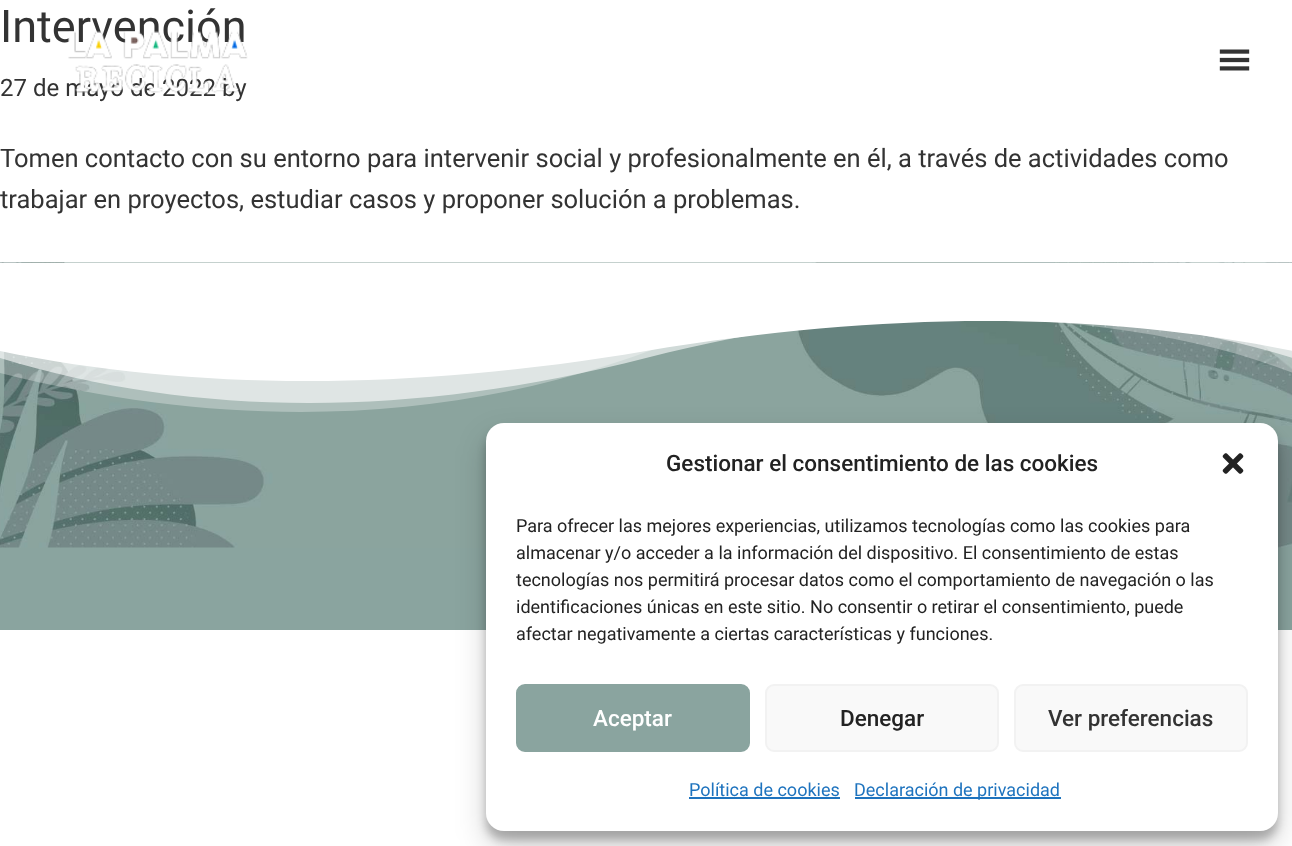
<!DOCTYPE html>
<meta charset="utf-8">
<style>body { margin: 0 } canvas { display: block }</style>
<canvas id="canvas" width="1292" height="846"></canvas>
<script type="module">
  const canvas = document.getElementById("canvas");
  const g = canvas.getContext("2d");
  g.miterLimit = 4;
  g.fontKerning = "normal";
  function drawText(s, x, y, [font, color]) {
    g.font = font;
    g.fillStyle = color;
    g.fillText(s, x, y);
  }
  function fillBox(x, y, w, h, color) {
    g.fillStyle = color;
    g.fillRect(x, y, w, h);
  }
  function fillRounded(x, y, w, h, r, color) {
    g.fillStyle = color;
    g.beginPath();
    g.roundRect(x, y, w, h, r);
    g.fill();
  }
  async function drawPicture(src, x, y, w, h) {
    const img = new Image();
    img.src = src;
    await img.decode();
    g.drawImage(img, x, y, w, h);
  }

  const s1 = ["45px Roboto", "#333333"];
  const s2 = ["24px Roboto", "#333333"];
  const s3 = ["25.5px Roboto", "#333333"];
  const s4 = ["500 22.5px Roboto", "#222222"];
  const s5 = ["18px Roboto", "#222222"];
  const s6 = ["500 22.5px Roboto", "#FFFFFF"];
  const s7 = ["500 22.5px Roboto", "#333333"];
  const s8 = ["18px Roboto", "#1E73BE"];

  fillBox(0, 0, 1292, 846, "#FFFFFF");
  drawText("Intervención", 0, 42, s1);
  drawText("27 de mayo de 2022 by", 0, 96, s2);
  drawText("Tomen contacto con su entorno para intervenir social y profesionalmente en él, a través de actividades como", 0, 167, s3);
  drawText("trabajar en proyectos, estudiar casos y proponer solución a problemas.", 0, 208, s3);
  await drawPicture("pic1.png", 67, 31, 181, 63);
  await drawPicture("pic2.png", 1219, 49, 31, 22);
  fillBox(0, 547, 1292, 83, "#8AA49F");
  await drawPicture("pic3.png", 0, 262, 1292, 286);
  g.fillStyle = "rgba(255, 255, 255, 0.3)";
  g.beginPath();
  g.moveTo(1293, 373);
  g.bezierCurveTo(1156, 319, 960, 304, 704, 329);
  g.bezierCurveTo(490, 422, 255, 437, 0, 373);
  g.lineTo(0, 269);
  g.lineTo(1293, 269);
  g.closePath();
  g.fill("evenodd");
  g.fillStyle = "rgba(255, 255, 255, 0.6)";
  g.beginPath();
  g.moveTo(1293, 358);
  g.bezierCurveTo(1096, 298, 881, 298, 646, 358);
  g.bezierCurveTo(412, 418, 197, 418, 0, 358);
  g.lineTo(0, 269);
  g.lineTo(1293, 269);
  g.closePath();
  g.fill("evenodd");
  g.save();
  g.beginPath();
  g.rect(0, 263, 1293, 150);
  g.clip();
  g.fillStyle = "#FFFFFF";
  g.beginPath();
  g.moveTo(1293, 351);
  g.bezierCurveTo(1099, 311, 883, 311, 646, 351);
  g.bezierCurveTo(410, 391, 194, 391, 0, 351);
  g.lineTo(0, 262);
  g.lineTo(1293, 262);
  g.closePath();
  g.fill("evenodd");
  g.restore();
  g.fillStyle = "rgba(0, 0, 0, 0.23)";
  g.filter = "blur(4.5px)";
  g.beginPath();
  g.roundRect(486, 432, 792, 408, 18);
  g.fill();
  g.filter = "none";
  g.fillStyle = "rgba(0, 0, 0, 0.19)";
  g.filter = "blur(15px)";
  g.beginPath();
  g.roundRect(486, 438, 792, 408, 18);
  g.fill();
  g.filter = "none";
  fillRounded(486, 423, 792, 408, 18, "#FFFFFF");
  drawText("Gestionar el consentimiento de las cookies", 666, 471, s4);
  await drawPicture("pic4.png", 1222, 453, 22, 21);
  drawText("Para ofrecer las mejores experiencias, utilizamos tecnologías como las cookies para", 516, 532, s5);
  drawText("almacenar y/o acceder a la información del dispositivo. El consentimiento de estas", 516, 559, s5);
  drawText("tecnologías nos permitirá procesar datos como el comportamiento de navegación o las", 516, 586, s5);
  drawText("identificaciones únicas en este sitio. No consentir o retirar el consentimiento, puede", 516, 613, s5);
  drawText("afectar negativamente a ciertas características y funciones.", 516, 640, s5);
  g.fillStyle = "#8AA49F";
  g.beginPath();
  g.roundRect(517, 685, 232, 66, 8);
  g.fill();
  g.strokeStyle = "#8AA49F";
  g.lineWidth = 2;
  g.stroke();
  drawText("Aceptar", 593, 726, s6);
  g.fillStyle = "#F9F9F9";
  g.beginPath();
  g.roundRect(766, 685, 232, 66, 8);
  g.fill();
  g.strokeStyle = "#F2F2F2";
  g.stroke();
  drawText("Denegar", 840, 726, s4);
  g.fillStyle = "#F9F9F9";
  g.beginPath();
  g.roundRect(1015, 685, 232, 66, 8);
  g.fill();
  g.stroke();
  drawText("Ver preferencias", 1048, 726, s7);
  drawText("Política de cookies", 689, 796, s8);
  fillBox(689, 797, 151, 2, "#1E73BE");
  fillBox(855, 797, 206, 2, "#1E73BE");
  drawText("Declaración de privacidad", 854, 796, s8);
</script>
